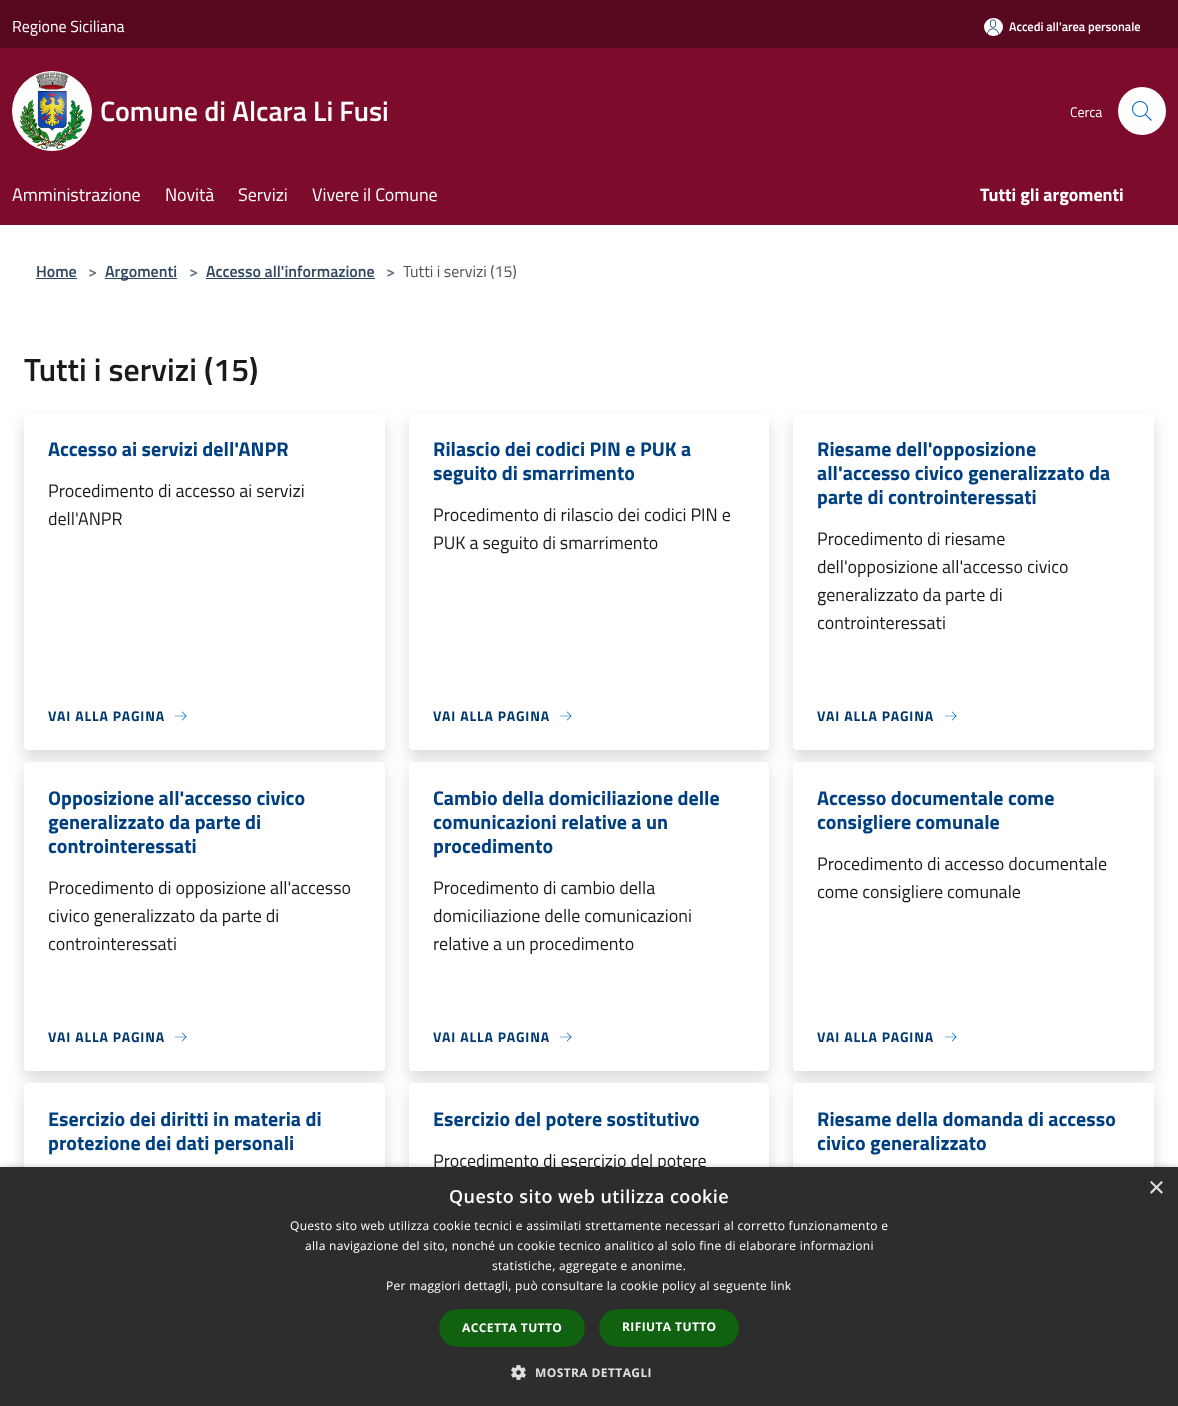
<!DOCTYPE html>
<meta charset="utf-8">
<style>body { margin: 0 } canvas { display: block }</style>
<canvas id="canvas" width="1178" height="1406"></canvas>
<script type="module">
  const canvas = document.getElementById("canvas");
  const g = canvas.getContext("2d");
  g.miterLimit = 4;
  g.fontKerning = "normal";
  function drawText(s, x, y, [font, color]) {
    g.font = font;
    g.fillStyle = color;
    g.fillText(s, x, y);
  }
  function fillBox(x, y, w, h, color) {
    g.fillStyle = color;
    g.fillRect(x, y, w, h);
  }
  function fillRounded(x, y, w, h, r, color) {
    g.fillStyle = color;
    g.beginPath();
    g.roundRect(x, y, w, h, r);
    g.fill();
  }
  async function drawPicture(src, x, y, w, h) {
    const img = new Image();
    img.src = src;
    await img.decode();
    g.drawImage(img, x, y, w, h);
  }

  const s1 = ["16px Titillium Web", "#FFFFFF"];
  const s2 = ["600 12.5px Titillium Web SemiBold", "#FFFFFF"];
  const s3 = ["600 28px Titillium Web SemiBold", "#FFFFFF"];
  const s4 = ["14px Titillium Web", "#FFFFFF"];
  const s5 = ["18px Titillium Web", "#FFFFFF"];
  const s6 = ["bold 18px Titillium Web", "#FFFFFF"];
  const s7 = ["600 16px Titillium Web SemiBold", "#30475F"];
  const s8 = ["600 16px Titillium Web SemiBold", "#5D7083"];
  const s9 = ["16px Titillium Web", "#525252"];
  const s10 = ["600 32px Titillium Web SemiBold", "#1A1A1A"];
  const s11 = ["bold 20px Titillium Web", "#004080"];
  const s12 = ["18px Titillium Web", "#1A1A1A"];
  const s13 = ["bold 14px Titillium Web", "#00396E"];
  const s14 = ["29px Liberation Sans", "#E0E0E0"];
  const s15 = ["600 18px Open Sans", "#FFFFFF"];
  const s16 = ["12px Open Sans", "#FFFFFF"];
  const s17 = ["bold 12px Open Sans", "#FFFFFF"];
  const s18 = ["bold 12px Open Sans", "#E0E0E0"];

  fillBox(0, 0, 1178, 1406, "#FFFFFF");
  fillBox(0, 0, 1178, 48, "#57071E");
  drawText("Regione Siciliana", 12, 32, s1);
  fillRounded(984, 18, 19, 18, 9, "#FFFFFF");
  await drawPicture("pic1.png", 987, 19, 12, 16);
  drawText("Accedi all'area personale", 1009, 31, s2);
  fillBox(0, 48, 1178, 177, "#7D0B2B");
  g.fillStyle = "#FFFFFF";
  g.beginPath();
  g.arc(52, 111, 39.5, 0, Math.PI * 2);
  g.fill();
  g.strokeStyle = "#FFFFFF";
  g.stroke();
  await drawPicture("pic2.png", 20, 72, 65, 78);
  drawText("Comune di Alcara Li Fusi", 100, 121, s3);
  drawText("Cerca", 1070, 117, s4);
  g.beginPath();
  g.arc(1142, 111, 24, 0, Math.PI * 2);
  g.fill();
  await drawPicture("pic3.png", 1132, 101, 20, 20);
  drawText("Amministrazione", 12, 201, s5);
  drawText("Novità", 165, 201, s5);
  drawText("Servizi", 238, 201, s5);
  drawText("Vivere il Comune", 312, 201, s5);
  drawText("Tutti gli argomenti", 980, 201, s6);
  drawText("Home", 36, 277, s7);
  fillBox(36, 278, 41, 1, "#30475F");
  drawText(">", 88, 277, s8);
  fillBox(105, 278, 72, 1, "#30475F");
  drawText("Argomenti", 105, 277, s7);
  drawText(">", 189, 277, s8);
  drawText("Accesso all'informazione", 206, 277, s7);
  fillBox(206, 278, 169, 1, "#30475F");
  drawText(">", 386, 277, s8);
  drawText("Tutti i servizi (15)", 403, 277, s9);
  drawText("Tutti i servizi (15)", 24, 381, s10);
  g.fillStyle = "rgba(0, 0, 0, 0.15)";
  g.filter = "blur(8px)";
  g.beginPath();
  g.roundRect(24, 421, 361, 337, 4);
  g.fill();
  g.filter = "none";
  fillRounded(24, 413, 361, 337, 4, "#FFFFFF");
  drawText("Accesso ai servizi dell'ANPR", 48, 456, s11);
  drawText("Procedimento di accesso ai servizi", 48, 497, s12);
  drawText("dell'ANPR", 48, 525, s12);
  g.letterSpacing = "0.9px";
  drawText("VAI ALLA PAGINA", 48, 721, s13);
  await drawPicture("pic4.png", 175, 711, 12, 10);
  g.fillStyle = "rgba(0, 0, 0, 0.15)";
  g.filter = "blur(8px)";
  g.beginPath();
  g.roundRect(409, 421, 360, 337, 4);
  g.fill();
  g.filter = "none";
  fillRounded(409, 413, 360, 337, 4, "#FFFFFF");
  g.letterSpacing = "0px";
  drawText("Rilascio dei codici PIN e PUK a", 433, 456, s11);
  drawText("seguito di smarrimento", 433, 480, s11);
  drawText("Procedimento di rilascio dei codici PIN e", 433, 521, s12);
  drawText("PUK a seguito di smarrimento", 433, 549, s12);
  g.letterSpacing = "0.9px";
  drawText("VAI ALLA PAGINA", 433, 721, s13);
  await drawPicture("pic4.png", 560, 711, 12, 10);
  g.fillStyle = "rgba(0, 0, 0, 0.15)";
  g.filter = "blur(8px)";
  g.beginPath();
  g.roundRect(793, 421, 361, 337, 4);
  g.fill();
  g.filter = "none";
  fillRounded(793, 413, 361, 337, 4, "#FFFFFF");
  g.letterSpacing = "0px";
  drawText("Riesame dell'opposizione", 817, 456, s11);
  drawText("all'accesso civico generalizzato da", 817, 480, s11);
  drawText("parte di controinteressati", 817, 504, s11);
  drawText("Procedimento di riesame", 817, 545, s12);
  drawText("dell'opposizione all'accesso civico", 817, 573, s12);
  drawText("generalizzato da parte di", 817, 601, s12);
  drawText("controinteressati", 817, 629, s12);
  g.letterSpacing = "0.9px";
  drawText("VAI ALLA PAGINA", 817, 721, s13);
  await drawPicture("pic4.png", 945, 711, 12, 10);
  g.fillStyle = "rgba(0, 0, 0, 0.15)";
  g.filter = "blur(8px)";
  g.beginPath();
  g.roundRect(24, 770, 361, 309, 4);
  g.fill();
  g.filter = "none";
  fillRounded(24, 762, 361, 309, 4, "#FFFFFF");
  g.letterSpacing = "0px";
  drawText("Opposizione all'accesso civico", 48, 805, s11);
  drawText("generalizzato da parte di", 48, 829, s11);
  drawText("controinteressati", 48, 853, s11);
  drawText("Procedimento di opposizione all'accesso", 48, 894, s12);
  drawText("civico generalizzato da parte di", 48, 922, s12);
  drawText("controinteressati", 48, 950, s12);
  g.letterSpacing = "0.9px";
  drawText("VAI ALLA PAGINA", 48, 1042, s13);
  await drawPicture("pic4.png", 175, 1032, 12, 10);
  g.fillStyle = "rgba(0, 0, 0, 0.15)";
  g.filter = "blur(8px)";
  g.beginPath();
  g.roundRect(409, 770, 360, 309, 4);
  g.fill();
  g.filter = "none";
  fillRounded(409, 762, 360, 309, 4, "#FFFFFF");
  g.letterSpacing = "0px";
  drawText("Cambio della domiciliazione delle", 433, 805, s11);
  drawText("comunicazioni relative a un", 433, 829, s11);
  drawText("procedimento", 433, 853, s11);
  drawText("Procedimento di cambio della", 433, 894, s12);
  drawText("domiciliazione delle comunicazioni", 433, 922, s12);
  drawText("relative a un procedimento", 433, 950, s12);
  g.letterSpacing = "0.9px";
  drawText("VAI ALLA PAGINA", 433, 1042, s13);
  await drawPicture("pic4.png", 560, 1032, 12, 10);
  g.fillStyle = "rgba(0, 0, 0, 0.15)";
  g.filter = "blur(8px)";
  g.beginPath();
  g.roundRect(793, 770, 361, 309, 4);
  g.fill();
  g.filter = "none";
  fillRounded(793, 762, 361, 309, 4, "#FFFFFF");
  g.letterSpacing = "0px";
  drawText("Accesso documentale come", 817, 805, s11);
  drawText("consigliere comunale", 817, 829, s11);
  drawText("Procedimento di accesso documentale", 817, 870, s12);
  drawText("come consigliere comunale", 817, 898, s12);
  g.letterSpacing = "0.9px";
  drawText("VAI ALLA PAGINA", 817, 1042, s13);
  await drawPicture("pic4.png", 945, 1032, 12, 10);
  g.fillStyle = "rgba(0, 0, 0, 0.15)";
  g.filter = "blur(8px)";
  g.beginPath();
  g.roundRect(24, 1091, 361, 257, 4);
  g.fill();
  g.filter = "none";
  fillRounded(24, 1083, 361, 257, 4, "#FFFFFF");
  g.letterSpacing = "0px";
  drawText("Esercizio dei diritti in materia di", 48, 1126, s11);
  drawText("protezione dei dati personali", 48, 1150, s11);
  g.fillStyle = "rgba(0, 0, 0, 0.15)";
  g.filter = "blur(8px)";
  g.beginPath();
  g.roundRect(409, 1091, 360, 257, 4);
  g.fill();
  g.filter = "none";
  fillRounded(409, 1083, 360, 257, 4, "#FFFFFF");
  drawText("Esercizio del potere sostitutivo", 433, 1126, s11);
  drawText("Procedimento di esercizio del potere", 433, 1167, s12);
  g.fillStyle = "rgba(0, 0, 0, 0.15)";
  g.filter = "blur(8px)";
  g.beginPath();
  g.roundRect(793, 1091, 361, 257, 4);
  g.fill();
  g.filter = "none";
  fillRounded(793, 1083, 361, 257, 4, "#FFFFFF");
  drawText("Riesame della domanda di accesso", 817, 1126, s11);
  drawText("civico generalizzato", 817, 1150, s11);
  g.fillStyle = "rgba(0, 0, 0, 0.35)";
  g.filter = "blur(4px)";
  g.beginPath();
  g.rect(1, 1169, 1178, 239);
  g.fill();
  g.filter = "none";
  fillBox(0, 1167, 1178, 239, "#2D2D2D");
  drawText("×", 1148, 1197, s14);
  g.letterSpacing = "0.4px";
  drawText("Questo sito web utilizza cookie", 449, 1203, s15);
  g.letterSpacing = "0.3px";
  drawText("Questo sito web utilizza cookie tecnici e assimilati strettamente necessari al corretto funzionamento e", 290, 1230, s16);
  drawText("alla navigazione del sito, nonché un cookie tecnico analitico al solo fine di elaborare informazioni", 305, 1250, s16);
  drawText("statistiche, aggregate e anonime.", 492, 1270, s16);
  drawText("Per maggiori dettagli, può consultare la cookie policy al seguente link", 386, 1290, s16);
  fillRounded(439, 1309, 146, 38, 19, "#106110");
  g.letterSpacing = "0.4px";
  drawText("ACCETTA TUTTO", 462, 1332, s17);
  fillRounded(599, 1309, 140, 38, 19, "#106110");
  drawText("RIFIUTA TUTTO", 622, 1331, s17);
  await drawPicture("pic5.png", 511, 1365, 15, 15);
  drawText("MOSTRA DETTAGLI", 535, 1377, s18);
</script>
